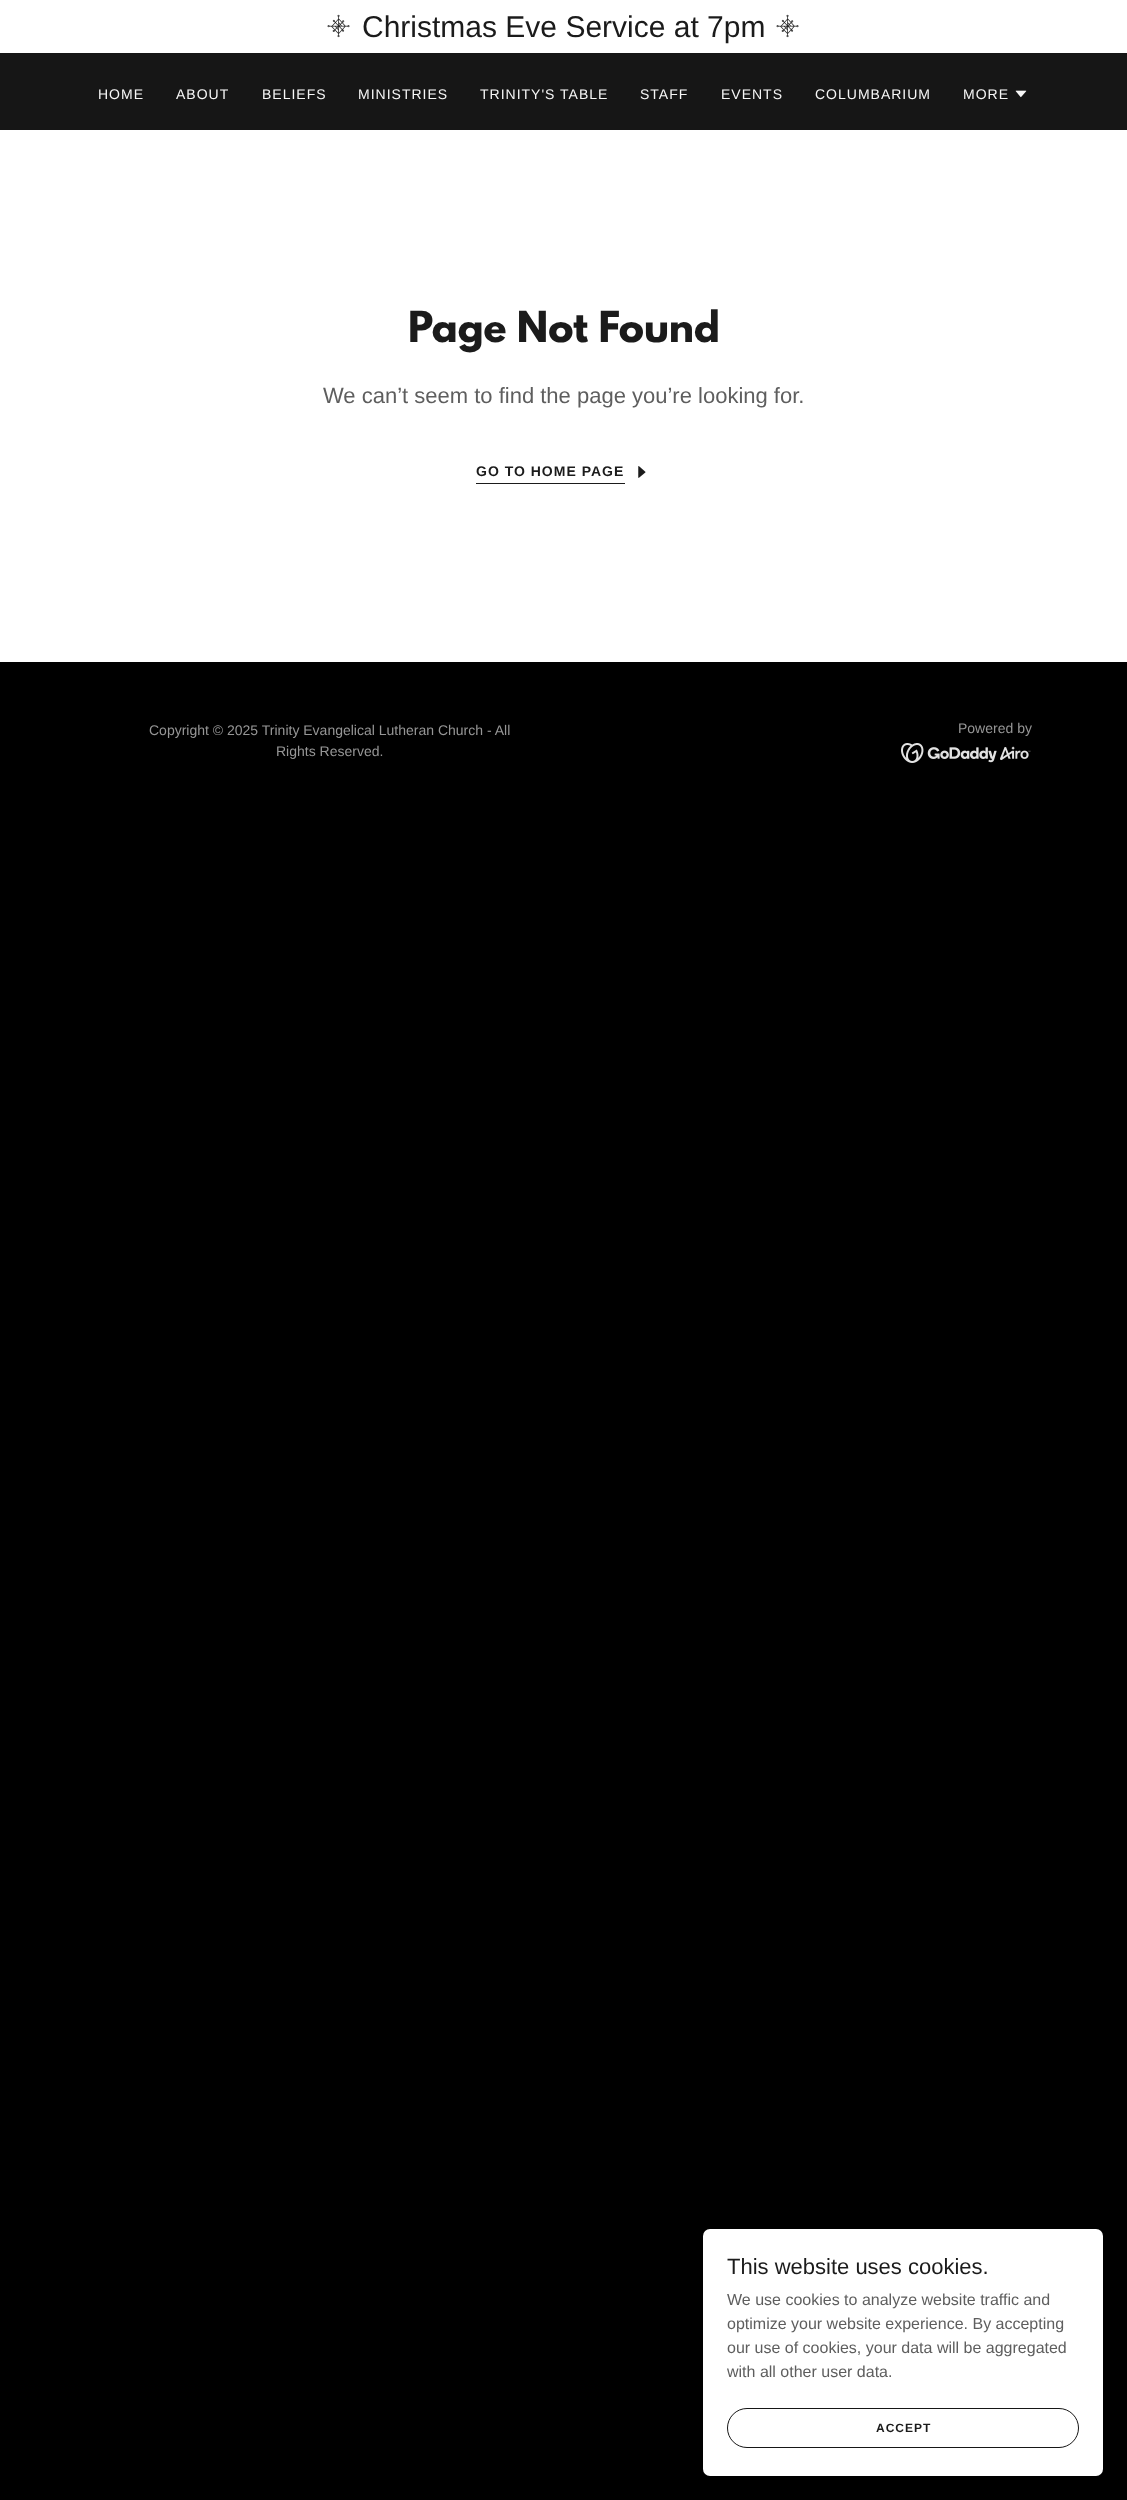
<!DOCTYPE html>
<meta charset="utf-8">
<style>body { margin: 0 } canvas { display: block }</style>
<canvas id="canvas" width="1127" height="2500"></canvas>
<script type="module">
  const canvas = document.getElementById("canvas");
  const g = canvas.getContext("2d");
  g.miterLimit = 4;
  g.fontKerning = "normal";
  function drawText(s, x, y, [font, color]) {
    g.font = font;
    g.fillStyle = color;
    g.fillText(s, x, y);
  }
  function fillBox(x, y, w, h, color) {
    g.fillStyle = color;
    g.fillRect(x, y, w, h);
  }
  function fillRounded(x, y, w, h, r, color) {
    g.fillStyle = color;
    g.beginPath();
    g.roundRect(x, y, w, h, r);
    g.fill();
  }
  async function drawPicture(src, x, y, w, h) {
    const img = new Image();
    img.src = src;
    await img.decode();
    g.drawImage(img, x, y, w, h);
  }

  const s1 = ["30px Liberation Sans", "#1B1B1B"];
  const s2 = ["14px Liberation Sans", "#F7F7F7"];
  const s3 = ["bold 38px League Spartan", "#1B1B1B"];
  const s4 = ["22px Liberation Sans", "#5E5E5E"];
  const s5 = ["bold 14px Liberation Sans", "#1B1B1B"];
  const s6 = ["14px Liberation Sans", "#969696"];
  const s7 = ["22px Liberation Sans", "#1B1B1B"];
  const s8 = ["16px Liberation Sans", "#5E5E5E"];
  const s9 = ["bold 12px Liberation Sans", "#1B1B1B"];

  fillBox(0, 0, 1127, 2500, "#000000");
  fillBox(0, 53, 1127, 77, "#161616");
  fillBox(0, 0, 1127, 53, "#FFFFFF");
  await drawPicture("pic1.png", 327, 14, 23, 24);
  drawText("Christmas Eve Service at 7pm", 362, 37, s1);
  await drawPicture("pic1.png", 776, 14, 23, 24);
  g.letterSpacing = "1px";
  drawText("HOME", 98, 99, s2);
  drawText("ABOUT", 176, 99, s2);
  drawText("BELIEFS", 262, 99, s2);
  drawText("MINISTRIES", 358, 99, s2);
  drawText("TRINITY'S TABLE", 480, 99, s2);
  drawText("STAFF", 640, 99, s2);
  drawText("EVENTS", 721, 99, s2);
  drawText("COLUMBARIUM", 815, 99, s2);
  drawText("MORE", 963, 99, s2);
  await drawPicture("pic2.png", 1015, 90, 12, 8);
  fillBox(0, 130, 1127, 532, "#FFFFFF");
  g.letterSpacing = "0px";
  drawText("Page Not Found", 408, 342, s3);
  drawText("We can’t seem to find the page you’re looking for.", 323, 403, s4);
  fillBox(476, 483, 149, 1, "#1B1B1B");
  g.letterSpacing = "1px";
  drawText("GO TO HOME PAGE", 476, 476, s5);
  await drawPicture("pic3.png", 638, 466, 8, 12);
  g.letterSpacing = "0px";
  drawText("Copyright © 2025 Trinity Evangelical Lutheran Church - All", 149, 735, s6);
  drawText("Rights Reserved.", 276, 756, s6);
  drawText("Powered by", 958, 733, s6);
  await drawPicture("pic4.png", 901, 743, 130, 20);
  fillRounded(703, 2229, 400, 247, 7, "#FFFFFF");
  drawText("This website uses cookies.", 727, 2274, s7);
  drawText("We use cookies to analyze website traffic and", 727, 2305, s8);
  drawText("optimize your website experience. By accepting", 727, 2329, s8);
  drawText("our use of cookies, your data will be aggregated", 727, 2353, s8);
  drawText("with all other user data.", 727, 2377, s8);
  g.beginPath();
  g.roundRect(727.5, 2408.5, 351, 39, 19.5);
  g.strokeStyle = "#161616";
  g.stroke();
  g.letterSpacing = "1px";
  drawText("ACCEPT", 876, 2432, s9);
</script>
